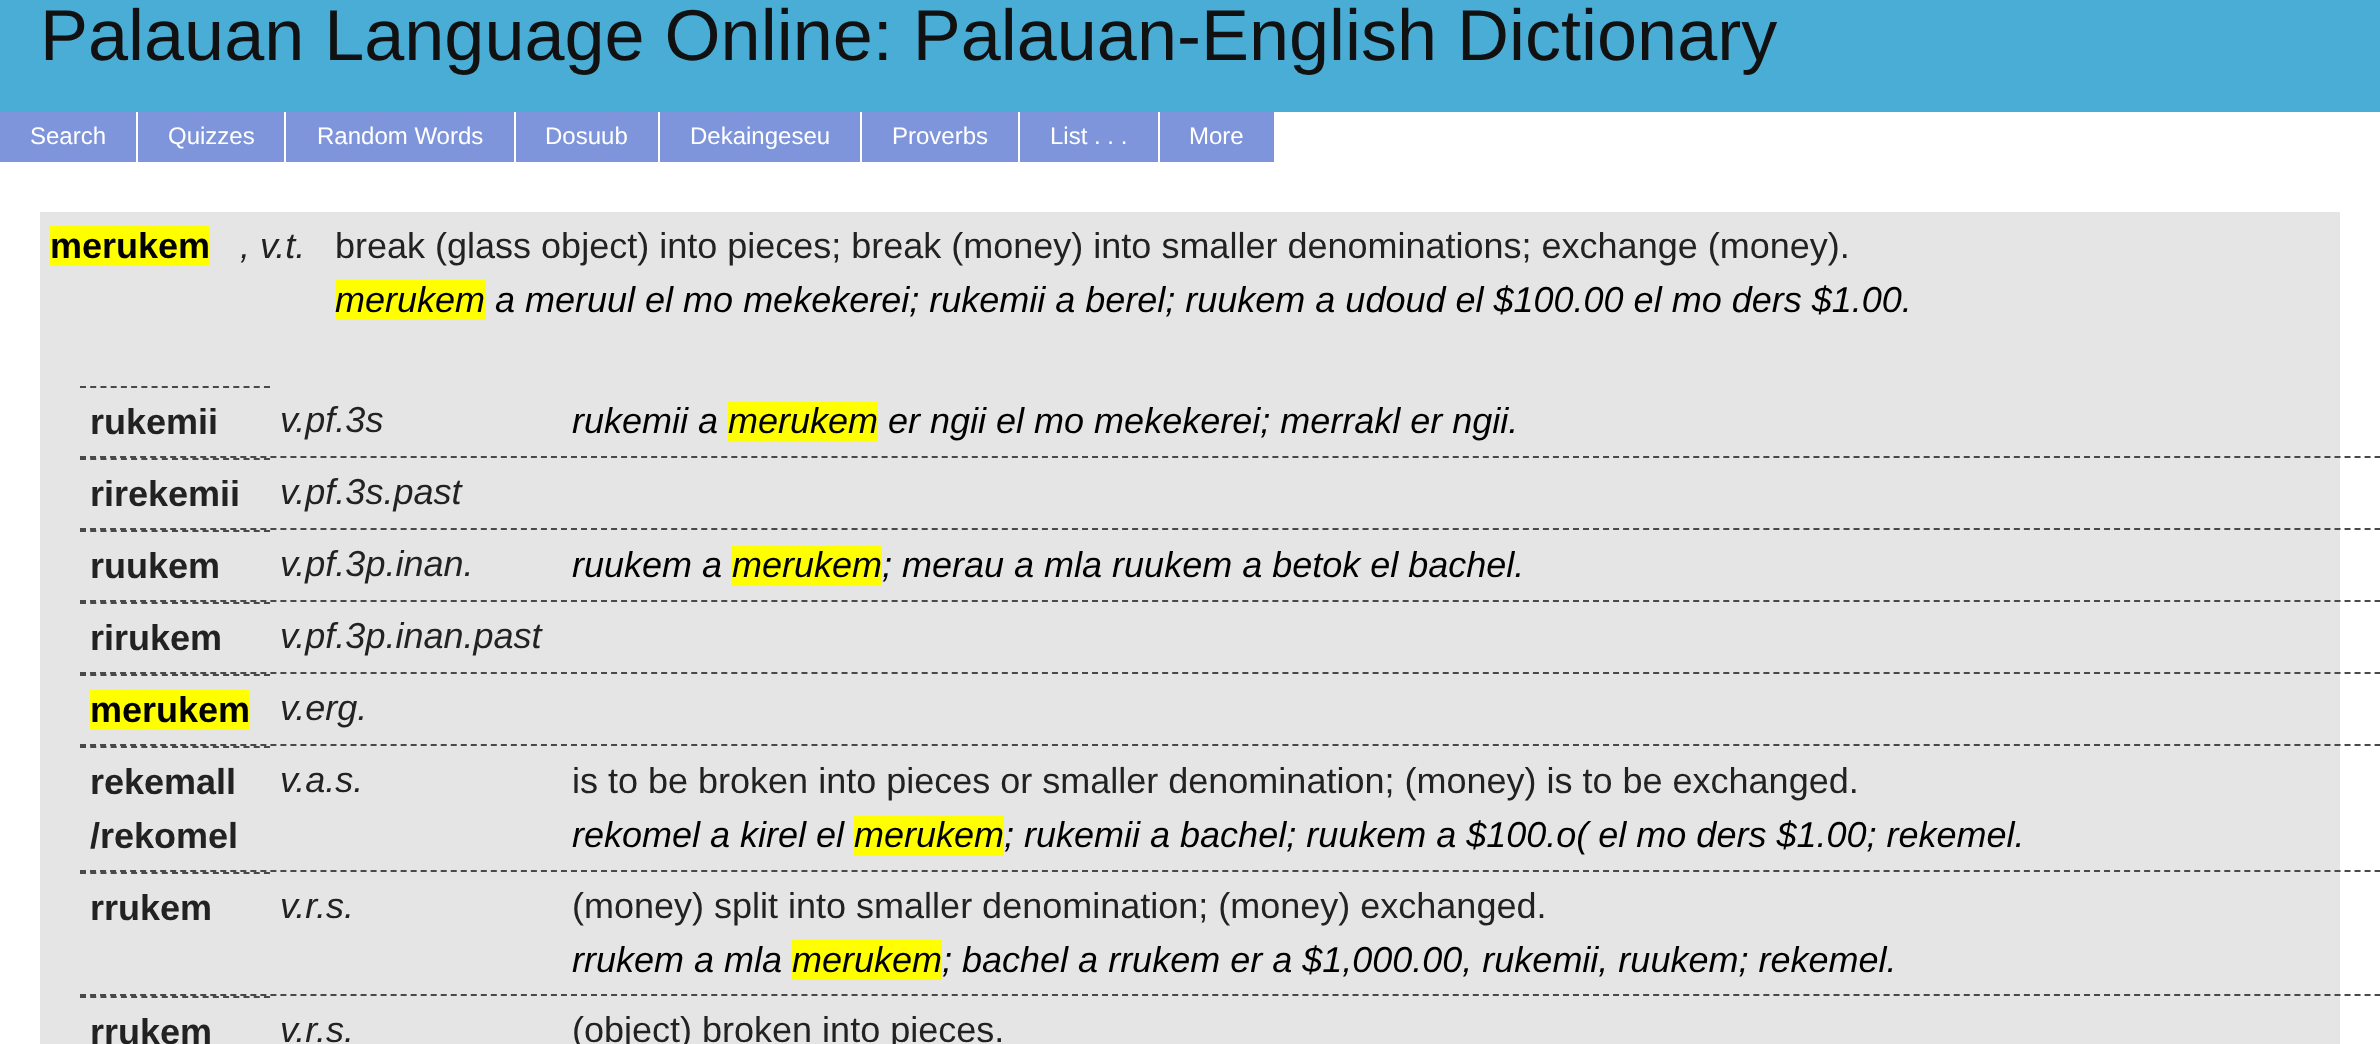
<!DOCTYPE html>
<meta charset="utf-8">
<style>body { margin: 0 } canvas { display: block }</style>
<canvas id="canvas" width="2380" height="1044"></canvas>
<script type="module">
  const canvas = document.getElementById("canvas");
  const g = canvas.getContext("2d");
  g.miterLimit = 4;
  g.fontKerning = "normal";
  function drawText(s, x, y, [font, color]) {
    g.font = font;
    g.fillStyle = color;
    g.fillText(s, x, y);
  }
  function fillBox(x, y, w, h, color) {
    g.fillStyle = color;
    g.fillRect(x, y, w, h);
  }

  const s1 = ["72px Liberation Sans", "#111111"];
  const s2 = ["24px Liberation Sans", "#FFFFFF"];
  const s3 = ["bold 36px Liberation Sans", "#000000"];
  const s4 = ["italic 36px Liberation Sans", "#222222"];
  const s5 = ["36px Liberation Sans", "#222222"];
  const s6 = ["italic 36px Liberation Sans", "#000000"];
  const s7 = ["bold 36px Liberation Sans", "#222222"];

  fillBox(0, 0, 2380, 1044, "#FFFFFF");
  fillBox(0, 0, 2380, 112, "#4AADD6");
  drawText("Palauan Language Online: Palauan-English Dictionary", 40, 60, s1);
  fillBox(0, 112, 136, 50, "#7F95DB");
  drawText("Search", 30, 144, s2);
  fillBox(138, 112, 146, 50, "#7F95DB");
  drawText("Quizzes", 168, 144, s2);
  fillBox(286, 112, 228, 50, "#7F95DB");
  drawText("Random Words", 317, 144, s2);
  fillBox(516, 112, 142, 50, "#7F95DB");
  drawText("Dosuub", 545, 144, s2);
  fillBox(660, 112, 200, 50, "#7F95DB");
  drawText("Dekaingeseu", 690, 144, s2);
  fillBox(862, 112, 156, 50, "#7F95DB");
  drawText("Proverbs", 892, 144, s2);
  fillBox(1020, 112, 138, 50, "#7F95DB");
  drawText("List . . .", 1050, 144, s2);
  fillBox(1160, 112, 114, 50, "#7F95DB");
  drawText("More", 1189, 144, s2);
  fillBox(40, 212, 2300, 832, "#E5E5E5");
  fillBox(50, 226, 160, 40, "#FFFF00");
  drawText("merukem", 50, 258, s3);
  drawText(", v.t.", 240, 258, s4);
  drawText("break (glass object) into pieces; break (money) into smaller denominations; exchange (money).", 335, 258, s5);
  fillBox(336, 280, 150, 40, "#FFFF00");
  drawText("merukem a meruul el mo mekekerei; rukemii a berel; ruukem a udoud el $100.00 el mo ders $1.00.", 335, 312, s6);
  g.beginPath();
  g.moveTo(80, 457);
  g.lineTo(2380, 457);
  g.strokeStyle = "#494949";
  g.lineWidth = 2;
  g.setLineDash([6, 4.02]);
  g.stroke();
  g.beginPath();
  g.moveTo(80, 387);
  g.lineTo(270, 387);
  g.setLineDash([6, 4.22]);
  g.stroke();
  drawText("rukemii", 90, 434, s7);
  drawText("v.pf.3s", 280, 432, s4);
  drawText("rukemii a", 572, 433, s6);
  fillBox(728, 402, 150, 40, "#FFFF00");
  drawText("merukem er ngii el mo mekekerei; merrakl er ngii.", 728, 433, s6);
  g.beginPath();
  g.moveTo(80, 529);
  g.lineTo(2380, 529);
  g.setLineDash([6, 4.02]);
  g.stroke();
  g.beginPath();
  g.moveTo(80, 459);
  g.lineTo(270, 459);
  g.setLineDash([6, 4.22]);
  g.stroke();
  drawText("rirekemii", 90, 506, s7);
  drawText("v.pf.3s.past", 280, 504, s4);
  g.beginPath();
  g.moveTo(80, 601);
  g.lineTo(2380, 601);
  g.setLineDash([6, 4.02]);
  g.stroke();
  g.beginPath();
  g.moveTo(80, 531);
  g.lineTo(270, 531);
  g.setLineDash([6, 4.22]);
  g.stroke();
  drawText("ruukem", 90, 578, s7);
  drawText("v.pf.3p.inan.", 280, 576, s4);
  drawText("ruukem a", 572, 577, s6);
  fillBox(732, 546, 150, 40, "#FFFF00");
  drawText("merukem; merau a mla ruukem a betok el bachel.", 732, 577, s6);
  g.beginPath();
  g.moveTo(80, 673);
  g.lineTo(2380, 673);
  g.setLineDash([6, 4.02]);
  g.stroke();
  g.beginPath();
  g.moveTo(80, 603);
  g.lineTo(270, 603);
  g.setLineDash([6, 4.22]);
  g.stroke();
  drawText("rirukem", 90, 650, s7);
  drawText("v.pf.3p.inan.past", 280, 648, s4);
  g.beginPath();
  g.moveTo(80, 745);
  g.lineTo(2380, 745);
  g.setLineDash([6, 4.02]);
  g.stroke();
  g.beginPath();
  g.moveTo(80, 675);
  g.lineTo(270, 675);
  g.setLineDash([6, 4.22]);
  g.stroke();
  fillBox(90, 690, 160, 40, "#FFFF00");
  drawText("merukem", 90, 722, s3);
  drawText("v.erg.", 280, 720, s4);
  g.beginPath();
  g.moveTo(80, 871);
  g.lineTo(2380, 871);
  g.setLineDash([6, 4.02]);
  g.stroke();
  g.beginPath();
  g.moveTo(80, 747);
  g.lineTo(270, 747);
  g.setLineDash([6, 4.22]);
  g.stroke();
  drawText("rekemall", 90, 794, s7);
  drawText("/rekomel", 90, 848, s7);
  drawText("v.a.s.", 280, 792, s4);
  drawText("is to be broken into pieces or smaller denomination; (money) is to be exchanged.", 572, 793, s5);
  drawText("rekomel a kirel el", 572, 847, s6);
  fillBox(854, 816, 150, 40, "#FFFF00");
  drawText("merukem; rukemii a bachel; ruukem a $100.o( el mo ders $1.00; rekemel.", 854, 847, s6);
  g.beginPath();
  g.moveTo(80, 995);
  g.lineTo(2380, 995);
  g.setLineDash([6, 4.02]);
  g.stroke();
  g.beginPath();
  g.moveTo(80, 873);
  g.lineTo(270, 873);
  g.setLineDash([6, 4.22]);
  g.stroke();
  drawText("rrukem", 90, 920, s7);
  drawText("v.r.s.", 280, 918, s4);
  drawText("(money) split into smaller denomination; (money) exchanged.", 572, 918, s5);
  drawText("rrukem a mla", 572, 972, s6);
  fillBox(792, 940, 150, 40, "#FFFF00");
  drawText("merukem; bachel a rrukem er a $1,000.00, rukemii, ruukem; rekemel.", 792, 972, s6);
  g.beginPath();
  g.moveTo(80, 997);
  g.lineTo(270, 997);
  g.stroke();
  drawText("rrukem", 90, 1044, s7);
  drawText("v.r.s.", 280, 1042, s4);
  drawText("(object) broken into pieces.", 572, 1042, s5);
</script>
